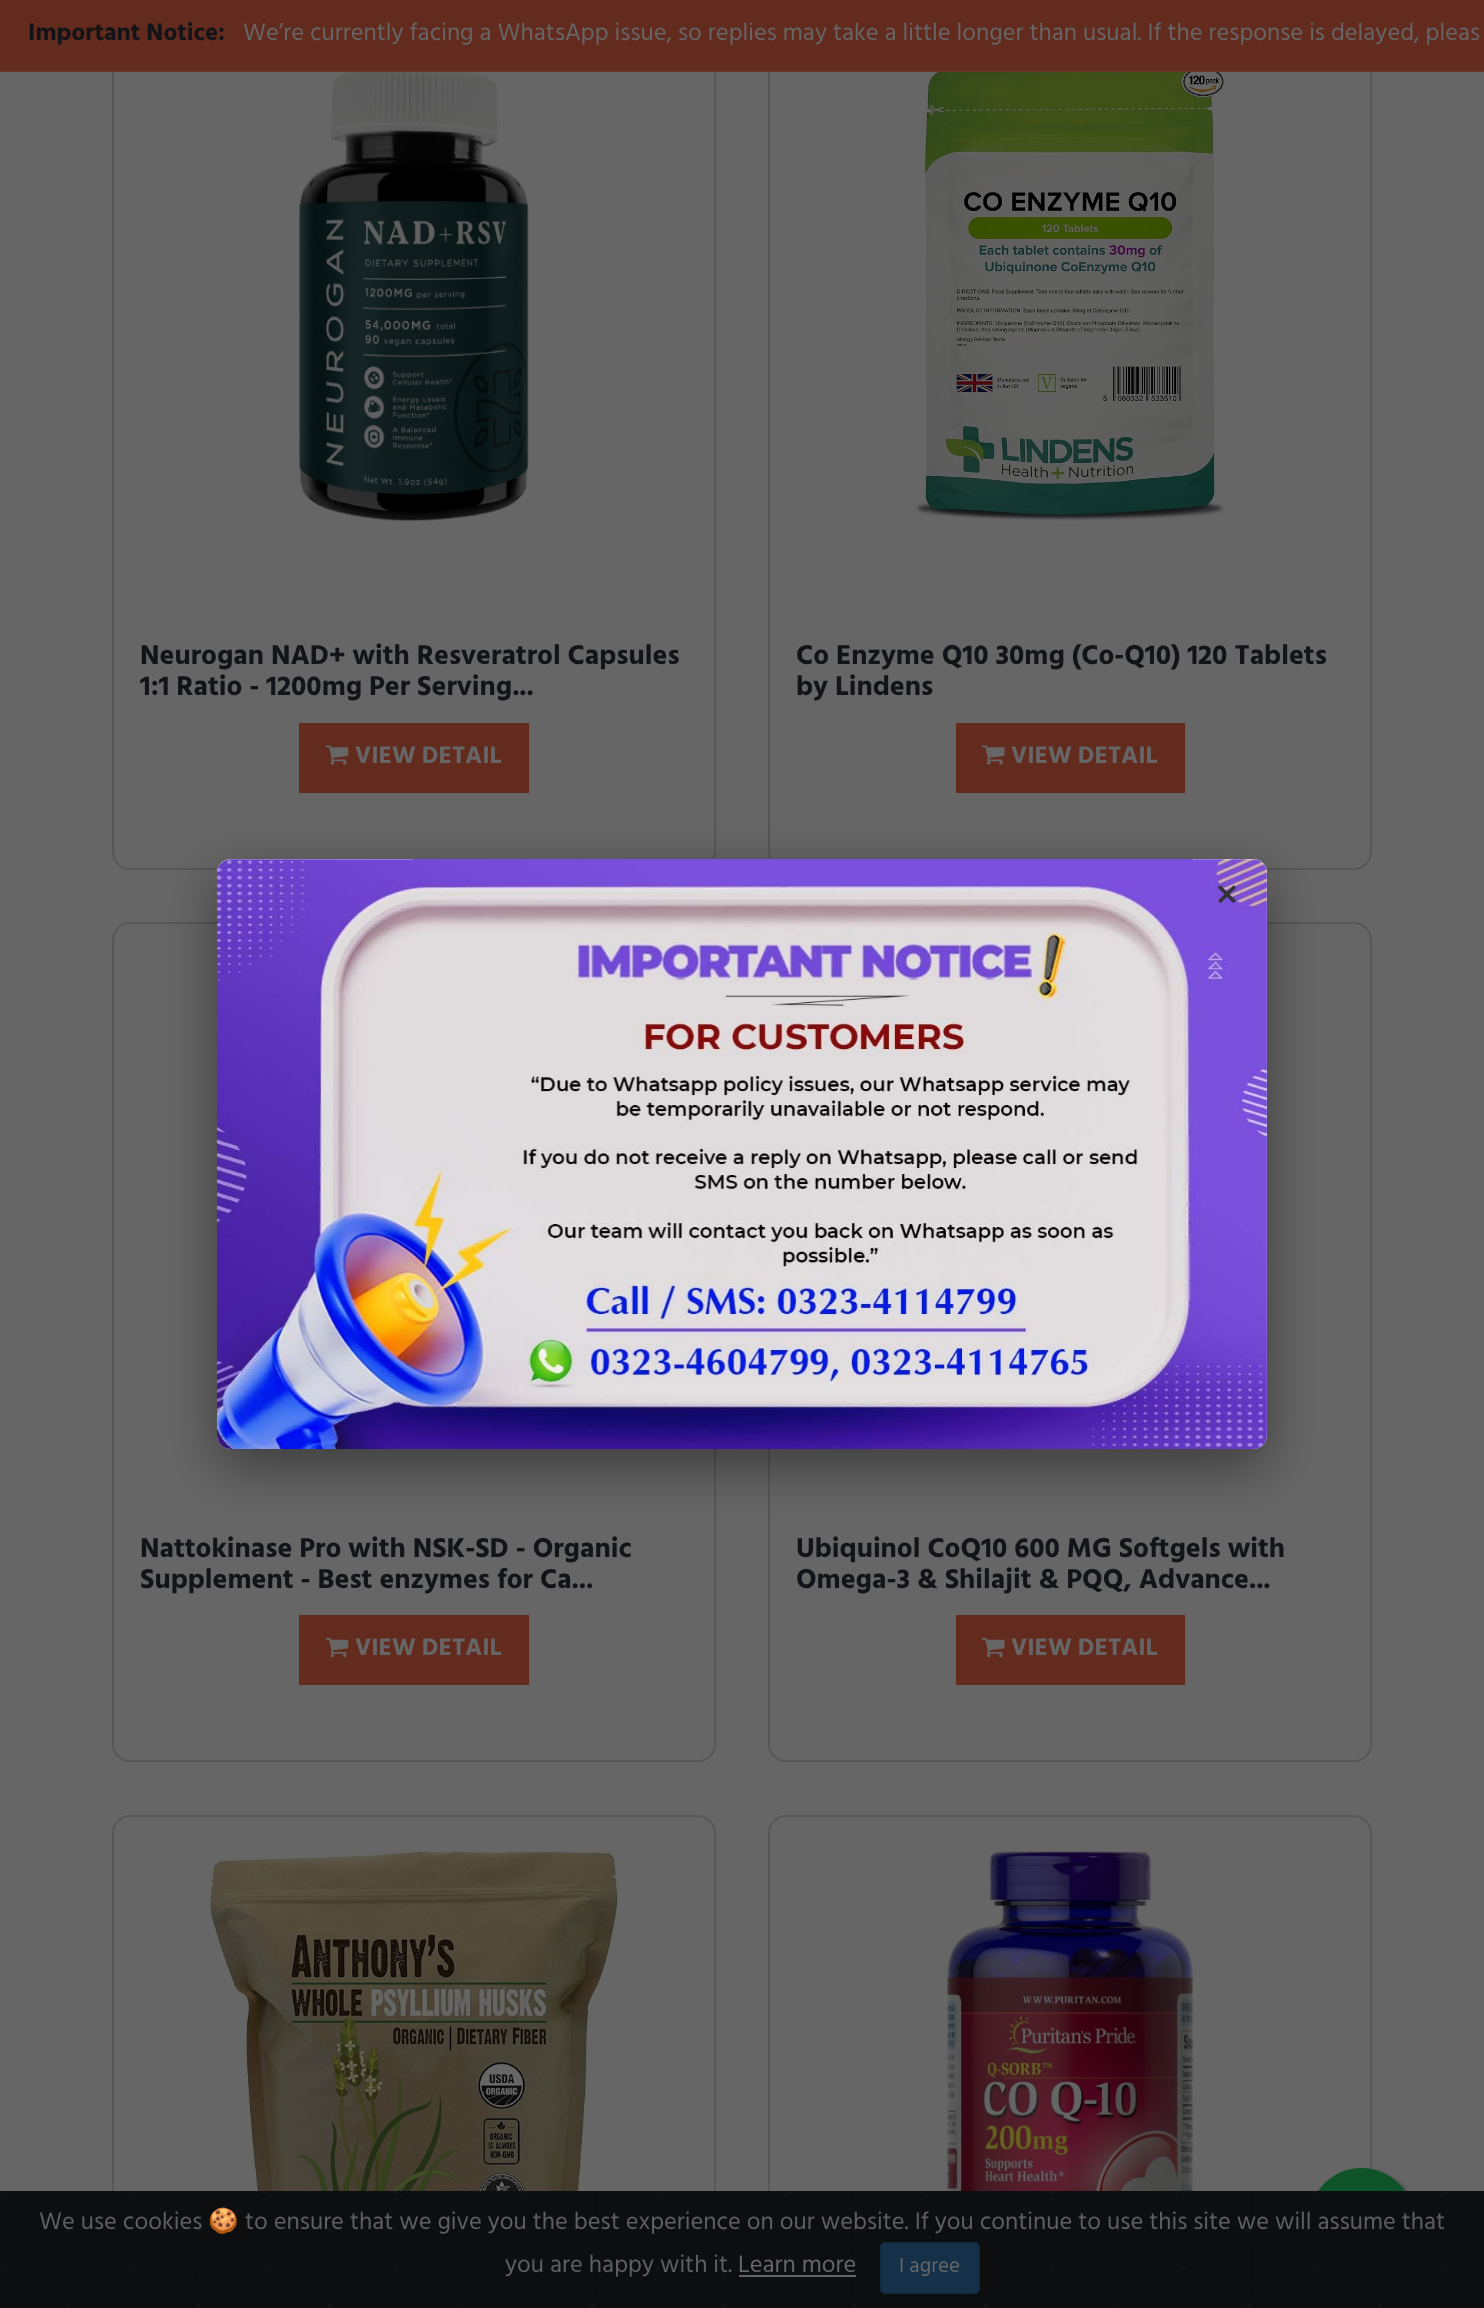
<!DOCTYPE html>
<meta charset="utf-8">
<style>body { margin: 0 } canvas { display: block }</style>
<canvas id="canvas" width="1484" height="2308"></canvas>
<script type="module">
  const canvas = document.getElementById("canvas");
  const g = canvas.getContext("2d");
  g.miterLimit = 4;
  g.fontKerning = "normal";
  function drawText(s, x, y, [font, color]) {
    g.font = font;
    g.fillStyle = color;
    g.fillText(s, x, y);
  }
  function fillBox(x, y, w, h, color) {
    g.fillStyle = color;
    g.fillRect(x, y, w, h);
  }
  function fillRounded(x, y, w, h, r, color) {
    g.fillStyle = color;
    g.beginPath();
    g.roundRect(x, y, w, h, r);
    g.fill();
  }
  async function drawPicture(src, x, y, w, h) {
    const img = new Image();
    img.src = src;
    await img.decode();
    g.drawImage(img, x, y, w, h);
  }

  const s1 = ["bold 24.5px Hind", "#131417"];
  const s2 = ["24.5px Hind", "#666666"];
  const s3 = ["bold 28px Hind", "#131417"];
  const s4 = ["bold 24.5px Hind", "#666666"];
  const s5 = ["49px Hind", "#333333"];
  const s6 = ["24.5px Hind", "#5E6060"];
  const s7 = ["24.5px Noto Color Emoji", "#5E6060"];
  const s8 = ["21px Hind", "#666666"];

  fillBox(0, 0, 1484, 2308, "#666666");
  g.beginPath();
  g.roundRect(113, 31, 602, 838, 17);
  g.strokeStyle = "#575757";
  g.lineWidth = 2;
  g.stroke();
  g.beginPath();
  g.roundRect(769, 31, 602, 838, 17);
  g.stroke();
  fillBox(0, 0, 1484, 70, "#632A1E");
  fillBox(0, 70, 1484, 2, "#643328");
  drawText("Important Notice:", 28, 40, s1);
  drawText("We’re currently facing a WhatsApp issue, so replies may take a little longer than usual. If the response is delayed, pleas", 243, 40, s2);
  await drawPicture("pic1.png", 299, 72, 230, 450);
  drawText("Neurogan NAD+ with Resveratrol Capsules", 140, 664, s3);
  drawText("1:1 Ratio - 1200mg Per Serving...", 140, 695, s3);
  fillBox(299, 723, 230, 70, "#632A1E");
  await drawPicture("pic2.png", 325, 745, 24, 20);
  drawText("VIEW DETAIL", 355, 763, s4);
  await drawPicture("pic3.png", 915, 72, 310, 449);
  drawText("Co Enzyme Q10 30mg (Co-Q10) 120 Tablets", 796, 664, s3);
  drawText("by Lindens", 796, 695, s3);
  fillBox(956, 723, 229, 70, "#632A1E");
  await drawPicture("pic4.png", 981, 745, 24, 20);
  drawText("VIEW DETAIL", 1011, 763, s4);
  g.beginPath();
  g.roundRect(113, 923, 602, 838, 17);
  g.stroke();
  drawText("Nattokinase Pro with NSK-SD - Organic", 140, 1557, s3);
  drawText("Supplement - Best enzymes for Ca...", 140, 1588, s3);
  fillBox(299, 1615, 230, 70, "#632A1E");
  await drawPicture("pic5.png", 325, 1638, 24, 20);
  drawText("VIEW DETAIL", 355, 1655, s4);
  g.beginPath();
  g.roundRect(769, 923, 602, 838, 17);
  g.stroke();
  drawText("Ubiquinol CoQ10 600 MG Softgels with", 796, 1557, s3);
  drawText("Omega-3 & Shilajit & PQQ, Advance...", 796, 1588, s3);
  fillBox(956, 1615, 229, 70, "#632A1E");
  await drawPicture("pic6.png", 981, 1638, 24, 20);
  drawText("VIEW DETAIL", 1011, 1655, s4);
  g.beginPath();
  g.roundRect(113, 1816, 602, 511, 17);
  g.stroke();
  await drawPicture("pic7.png", 210, 1851, 408, 340);
  g.beginPath();
  g.roundRect(769, 1816, 602, 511, 17);
  g.stroke();
  await drawPicture("pic8.png", 946, 1851, 248, 340);
  g.fillStyle = "rgba(0, 0, 0, 0.4)";
  g.filter = "blur(26px)";
  g.beginPath();
  g.roundRect(217, 877, 1050, 590, 14);
  g.fill();
  g.filter = "none";
  fillRounded(217, 859, 1050, 590, 14, "#FFFFFF");
  await drawPicture("pic9.png", 217, 859, 1050, 590);
  drawText("×", 1215, 911, s5);
  g.fillStyle = "#3D3D3D";
  g.filter = "blur(2.5px)";
  g.beginPath();
  g.roundRect(1313, 2172, 105, 105, 52.5);
  g.fill();
  g.filter = "none";
  g.fillStyle = "#0F5429";
  g.beginPath();
  g.arc(1361.5, 2220.5, 52.5, 0, Math.PI * 2);
  g.fill();
  await drawPicture("pic10.png", 0, 2191, 1484, 117);
  drawText("We use cookies", 39, 2229, s6);
  drawText("🍪", 208, 2229, s7);
  drawText("to ensure that we give you the best experience on our website. If you continue to use this site we will assume that", 245, 2229, s6);
  drawText("you are happy with it.", 505, 2272, s6);
  drawText("Learn more", 738, 2272, s2);
  fillBox(739, 2275, 117, 2, "#666666");
  g.fillStyle = "#143149";
  g.beginPath();
  g.roundRect(881, 2243, 98, 50, 4);
  g.fill();
  g.strokeStyle = "#122C42";
  g.stroke();
  drawText("I agree", 899, 2272, s8);
</script>
